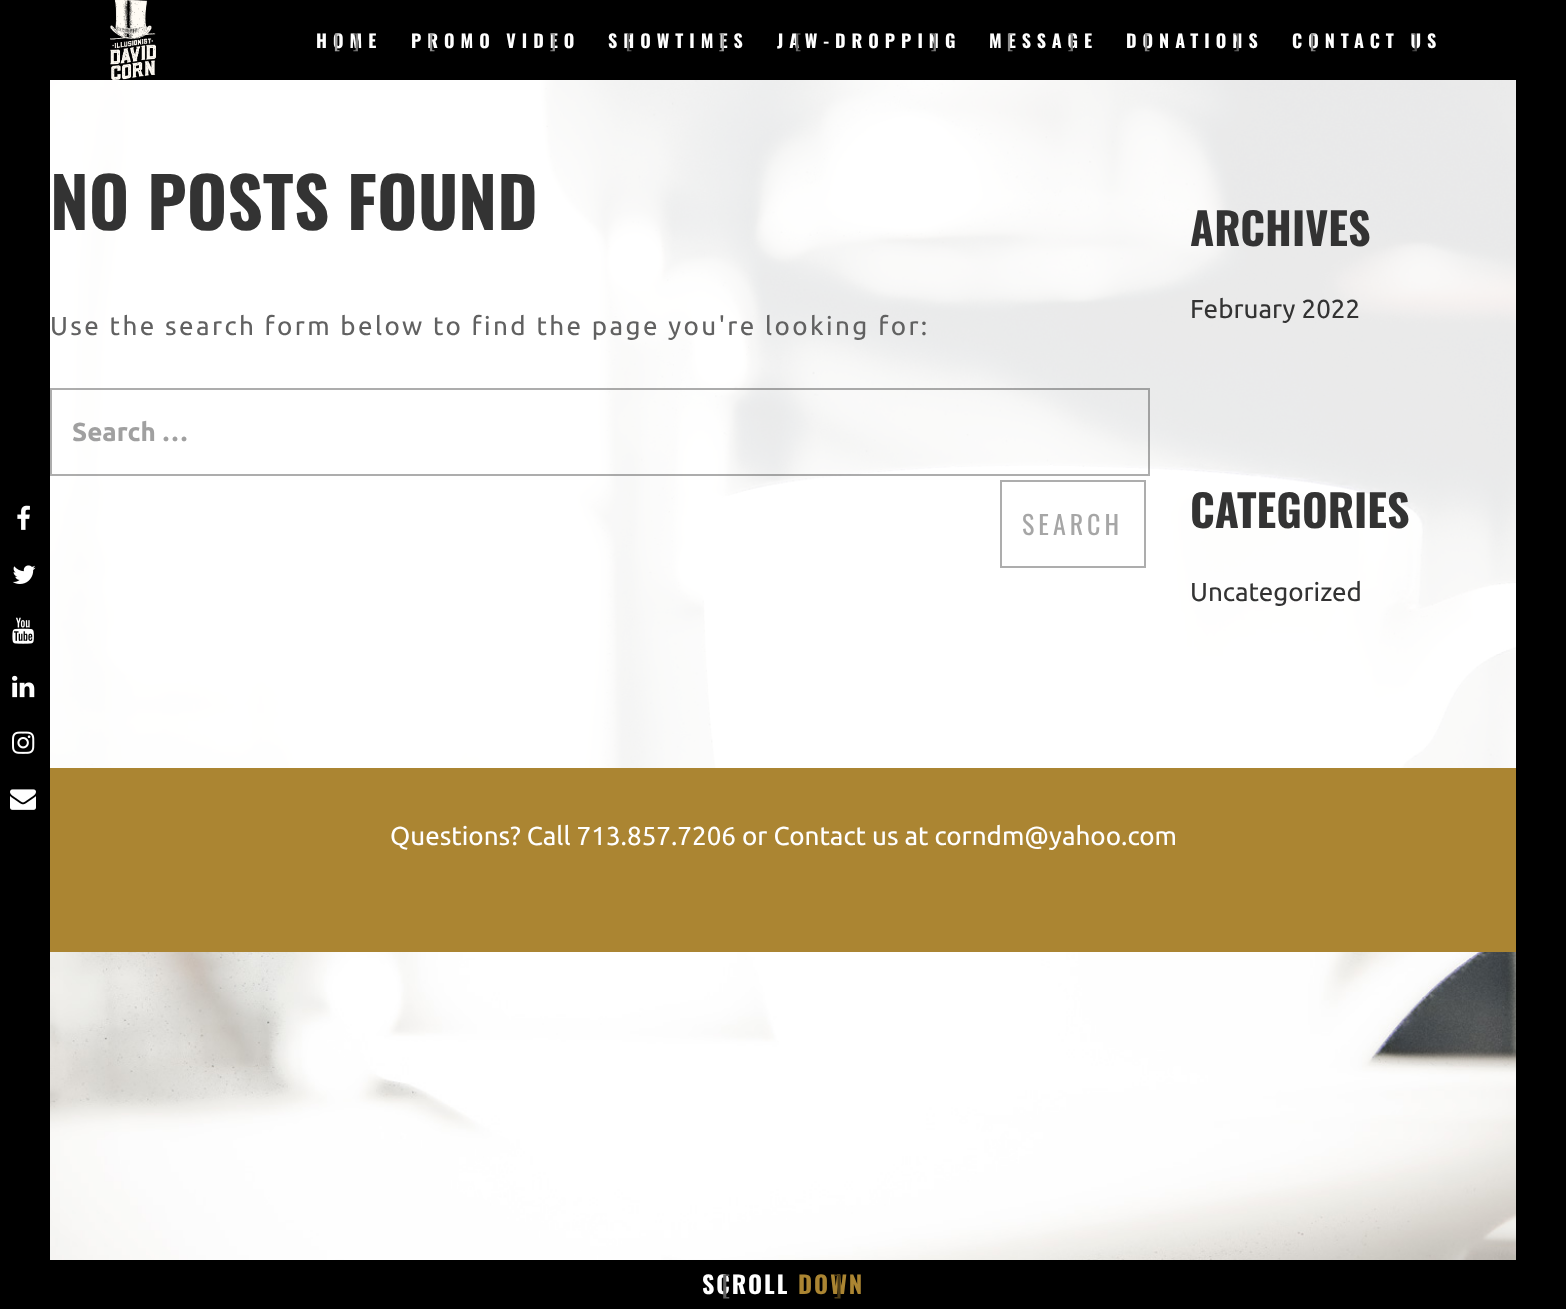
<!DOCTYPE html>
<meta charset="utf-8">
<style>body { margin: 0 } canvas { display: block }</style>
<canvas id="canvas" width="1566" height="1309"></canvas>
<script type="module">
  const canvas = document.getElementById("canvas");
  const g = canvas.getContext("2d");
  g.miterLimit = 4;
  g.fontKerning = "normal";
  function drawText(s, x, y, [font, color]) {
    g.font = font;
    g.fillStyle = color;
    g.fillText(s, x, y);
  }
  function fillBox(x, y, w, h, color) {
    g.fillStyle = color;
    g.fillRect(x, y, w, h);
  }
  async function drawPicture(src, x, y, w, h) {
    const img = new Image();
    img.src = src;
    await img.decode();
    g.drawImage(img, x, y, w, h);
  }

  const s1 = ["bold 18px Oswald", "#FFFFFF"];
  const s2 = ["bold 18px Oswald", "#A0A0A0"];
  const s3 = ["bold 18px Oswald", "#7A7A7A"];
  const s4 = ["bold 18px Oswald", "#939393"];
  const s5 = ["bold 18px Oswald", "#8B8B8B"];
  const s6 = ["bold 18px Oswald", "#616161"];
  const s7 = ["bold 18px Oswald", "#6D6D6D"];
  const s8 = ["bold 18px Oswald", "#4F4F4F"];
  const s9 = ["bold 69.25px Oswald", "#333333"];
  const s10 = ["26px Ubuntu", "#616161"];
  const s11 = ["bold 26px Ubuntu", "#A0A0A0"];
  const s12 = ["26px Oswald", "#A6A6A6"];
  const s13 = ["bold 44px Oswald", "#333333"];
  const s14 = ["26px Ubuntu", "#333333"];
  const s15 = ["26px Ubuntu", "#FFFFFF"];
  const s16 = ["bold 24px Oswald", "#FFFFFF"];
  const s17 = ["bold 24px Oswald", "#616161"];
  const s18 = ["bold 24px Oswald", "#AB8532"];
  const s19 = ["bold 24px Oswald", "#4D3C16"];

  fillBox(0, 0, 1566, 1309, "#FFFFFF");
  fillBox(0, 0, 1566, 80, "#000000");
  await drawPicture("pic1.png", 110, 0, 46, 80);
  g.letterSpacing = "6px";
  drawText("HOME", 316, 48, s1);
  drawText("[", 334, 48, s2);
  drawText("]", 353, 48, s3);
  drawText("PROMO VIDEO", 411, 48, s1);
  drawText("[", 429, 48, s4);
  drawText("]", 550, 48, s5);
  drawText("SHOWTIMES", 608, 48, s1);
  drawText("[", 626, 48, s6);
  drawText("]", 719, 48, s2);
  drawText("JAW-DROPPING", 777, 48, s1);
  drawText("[", 795, 48, s7);
  drawText("]", 931, 48, s3);
  drawText("MESSAGE", 989, 48, s1);
  drawText("[", 1007, 48, s5);
  drawText("]", 1068, 48, s3);
  drawText("DONATIONS", 1126, 48, s1);
  drawText("[", 1144, 48, s5);
  drawText("]", 1234, 48, s6);
  drawText("CONTACT US", 1292, 48, s1);
  drawText("[", 1310, 48, s5);
  drawText("]", 1412, 48, s8);
  fillBox(0, 80, 50, 1180, "#000000");
  await drawPicture("pic2.png", 50, 80, 1466, 1180);
  fillBox(50, 80, 1466, 688, "rgba(255, 255, 255, 0.9)");
  g.letterSpacing = "0px";
  drawText("NO POSTS FOUND", 50, 230, s9);
  g.letterSpacing = "2.4px";
  drawText("Use the search form below to find the page you're looking for:", 50, 335, s10);
  g.strokeStyle = "rgba(51, 51, 51, 0.4)";
  g.lineWidth = 2;
  g.strokeRect(51, 389, 1098, 86);
  g.letterSpacing = "0px";
  drawText("Search …", 72, 441, s11);
  g.strokeStyle = "#ADADAD";
  g.strokeRect(1001, 481, 144, 86);
  g.letterSpacing = "4px";
  drawText("SEARCH", 1022, 535, s12);
  g.letterSpacing = "0px";
  drawText("ARCHIVES", 1190, 246, s13);
  drawText("February 2022", 1190, 318, s14);
  drawText("CATEGORIES", 1190, 528, s13);
  drawText("Uncategorized", 1190, 601, s14);
  fillBox(50, 768, 1466, 184, "#AB8532");
  drawText("Questions? Call 713.857.7206 or Contact us at corndm@yahoo.com", 390, 845, s15);
  fillBox(1516, 80, 50, 1180, "#000000");
  await drawPicture("pic3.png", 17, 505, 13, 25);
  await drawPicture("pic4.png", 12, 565, 24, 19);
  await drawPicture("pic5.png", 12, 617, 22, 27);
  await drawPicture("pic6.png", 12, 675, 23, 23);
  await drawPicture("pic7.png", 12, 731, 23, 23);
  await drawPicture("pic8.png", 10, 789, 26, 21);
  fillBox(0, 1260, 1566, 49, "#000000");
  g.letterSpacing = "2px";
  drawText("SCROLL", 702, 1294, s16);
  drawText("[", 722, 1294, s17);
  drawText("DOWN", 798, 1294, s18);
  drawText("]", 834, 1294, s19);
</script>
